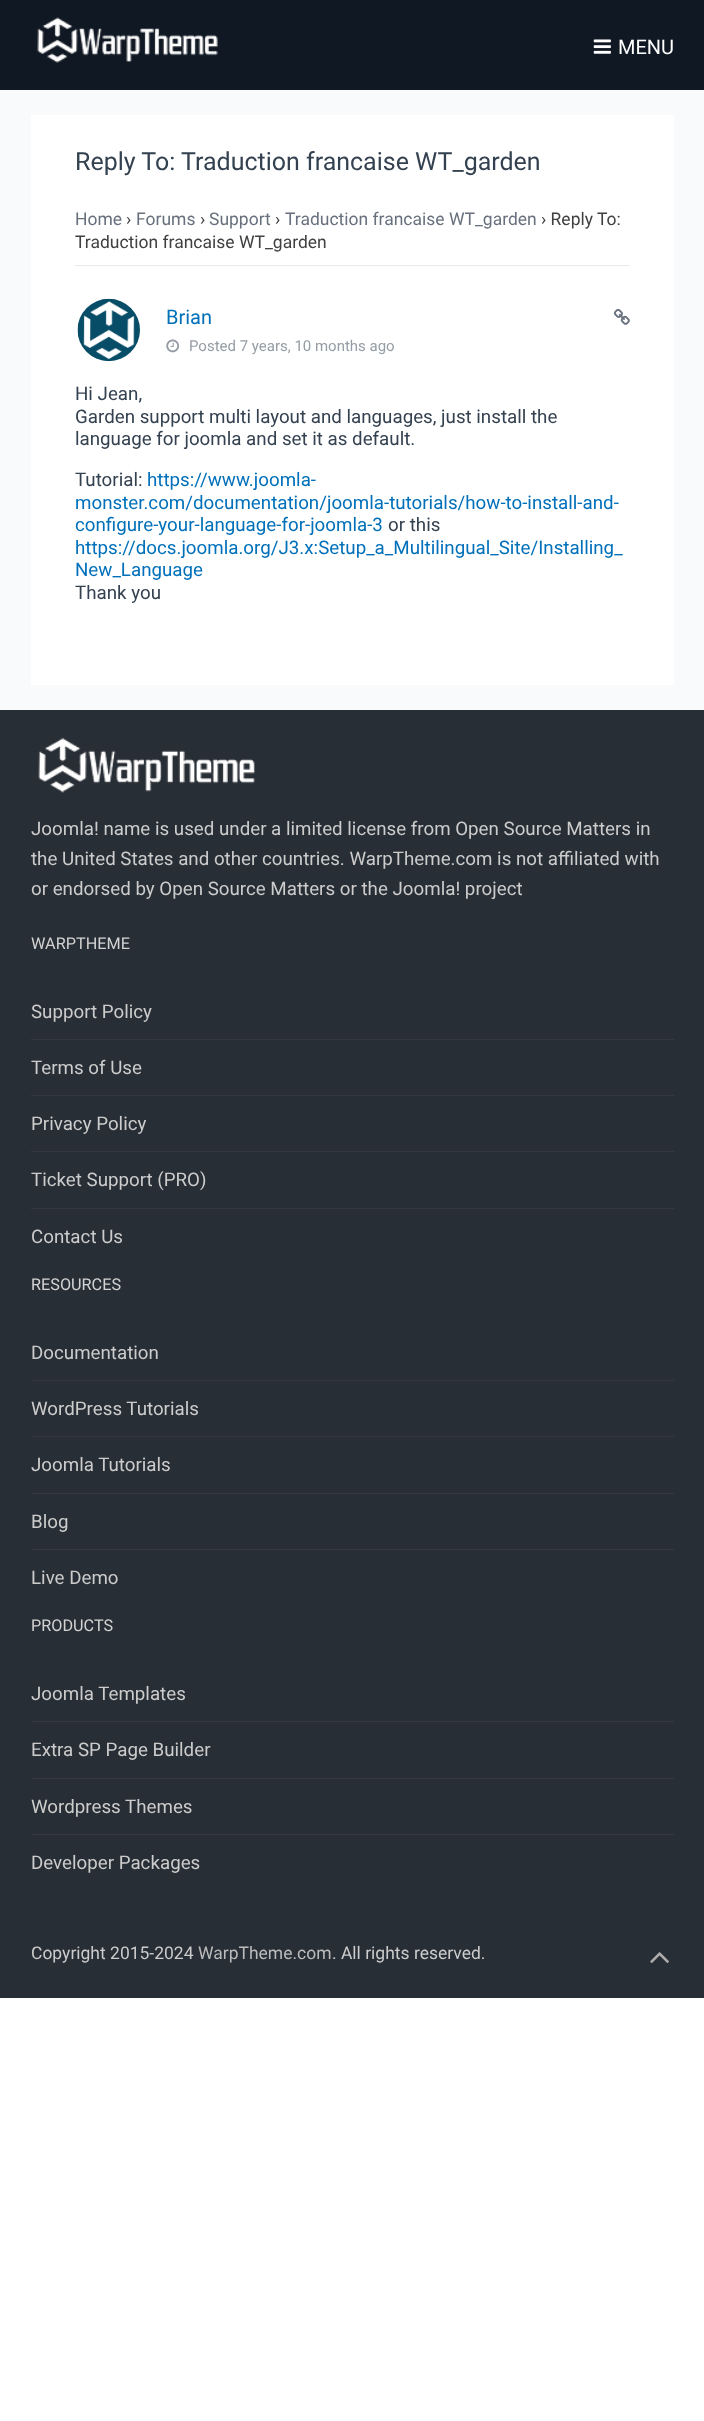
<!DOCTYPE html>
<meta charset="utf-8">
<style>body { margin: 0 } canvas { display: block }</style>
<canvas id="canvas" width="704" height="2421"></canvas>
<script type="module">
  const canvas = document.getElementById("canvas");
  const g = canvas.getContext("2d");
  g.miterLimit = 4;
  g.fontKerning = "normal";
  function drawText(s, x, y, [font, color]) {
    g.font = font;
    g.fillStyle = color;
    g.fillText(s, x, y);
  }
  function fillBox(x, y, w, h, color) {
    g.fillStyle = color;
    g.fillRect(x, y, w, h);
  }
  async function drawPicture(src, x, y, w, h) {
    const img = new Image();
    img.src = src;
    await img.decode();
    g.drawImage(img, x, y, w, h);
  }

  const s1 = ["20px Roboto", "#FFFFFF"];
  const s2 = ["25px Roboto", "#344150"];
  const s3 = ["17.5px Roboto", "#67707C"];
  const s4 = ["17.5px Roboto", "#404040"];
  const s5 = ["20px Roboto", "#0070BA"];
  const s6 = ["15px Roboto", "#959CA4"];
  const s7 = ["18.75px Roboto", "#344150"];
  const s8 = ["18.75px Roboto", "#0070BA"];
  const s9 = ["18.75px Roboto", "#CCCCCC"];
  const s10 = ["16.25px Roboto", "#D3D3D3"];
  const s11 = ["17.5px Roboto", "#CCCCCC"];
  const s12 = ["17.5px Roboto", "#BBBBBB"];

  fillBox(0, 0, 704, 2421, "#FFFFFF");
  fillBox(0, 0, 704, 90, "#0F1823");
  await drawPicture("pic1.png", 37, 17, 181, 46);
  await drawPicture("pic2.png", 593, 39, 18, 15);
  drawText("MENU", 618, 54, s1);
  fillBox(0, 90, 704, 620, "#F9FAFB");
  fillBox(31, 115, 643, 570, "#FFFFFF");
  drawText("Reply To: Traduction francaise WT_garden", 75, 170, s2);
  drawText("Home", 75, 225, s3);
  drawText("›", 126, 225, s4);
  drawText("Forums", 136, 225, s3);
  drawText("›", 200, 225, s4);
  drawText("Support", 209, 225, s3);
  drawText("›", 275, 225, s4);
  drawText("Traduction francaise WT_garden", 285, 225, s3);
  drawText("› Reply To:", 541, 225, s4);
  drawText("Traduction francaise WT_garden", 75, 248, s4);
  fillBox(75, 265, 555, 1, "#EBEBEB");
  await drawPicture("pic3.png", 77, 298, 63, 64);
  drawText("Brian", 166, 324, s5);
  await drawPicture("pic4.png", 613, 308, 17, 17);
  await drawPicture("pic5.png", 166, 339, 14, 14);
  drawText("Posted 7 years, 10 months ago", 189, 351, s6);
  drawText("Hi Jean,", 75, 400, s7);
  drawText("Garden support multi layout and languages, just install the", 75, 423, s7);
  drawText("language for joomla and set it as default.", 75, 445, s7);
  drawText("Tutorial:", 75, 486, s7);
  drawText("https://www.joomla-", 147, 486, s8);
  drawText("monster.com/documentation/joomla-tutorials/how-to-install-and-", 75, 509, s8);
  drawText("configure-your-language-for-joomla-3", 75, 531, s8);
  drawText("or this", 388, 531, s7);
  drawText("https://docs.joomla.org/J3.x:Setup_a_Multilingual_Site/Installing_", 75, 554, s8);
  drawText("New_Language", 75, 576, s8);
  drawText("Thank you", 75, 599, s7);
  fillBox(0, 710, 704, 1288, "#282E35");
  await drawPicture("pic6.png", 38, 737, 217, 56);
  drawText("Joomla! name is used under a limited license from Open Source Matters in", 31, 835, s9);
  drawText("the United States and other countries. WarpTheme.com is not affiliated with", 31, 865, s9);
  drawText("or endorsed by Open Source Matters or the Joomla! project", 31, 895, s9);
  drawText("WARPTHEME", 31, 949, s10);
  drawText("Support Policy", 31, 1018, s9);
  fillBox(31, 1039, 643, 1, "#34393F");
  drawText("Terms of Use", 31, 1074, s9);
  fillBox(31, 1095, 643, 1, "#34393F");
  drawText("Privacy Policy", 31, 1130, s9);
  fillBox(31, 1151, 643, 1, "#34393F");
  drawText("Ticket Support (PRO)", 31, 1186, s9);
  fillBox(31, 1208, 643, 1, "#34393F");
  drawText("Contact Us", 31, 1243, s9);
  drawText("RESOURCES", 31, 1290, s10);
  drawText("Documentation", 31, 1359, s9);
  fillBox(31, 1380, 643, 1, "#34393F");
  drawText("WordPress Tutorials", 31, 1415, s9);
  fillBox(31, 1436, 643, 1, "#34393F");
  drawText("Joomla Tutorials", 31, 1471, s9);
  fillBox(31, 1493, 643, 1, "#34393F");
  drawText("Blog", 31, 1528, s9);
  fillBox(31, 1549, 643, 1, "#34393F");
  drawText("Live Demo", 31, 1584, s9);
  drawText("PRODUCTS", 31, 1631, s10);
  drawText("Joomla Templates", 31, 1700, s9);
  fillBox(31, 1721, 643, 1, "#34393F");
  drawText("Extra SP Page Builder", 31, 1756, s9);
  fillBox(31, 1778, 643, 1, "#34393F");
  drawText("Wordpress Themes", 31, 1813, s9);
  fillBox(31, 1834, 643, 1, "#34393F");
  drawText("Developer Packages", 31, 1869, s9);
  drawText("Copyright 2015-2024", 31, 1959, s11);
  drawText("WarpTheme.com", 198, 1959, s12);
  drawText(". All rights reserved.", 332, 1959, s11);
  await drawPicture("pic7.png", 650, 1952, 19, 11);
</script>
